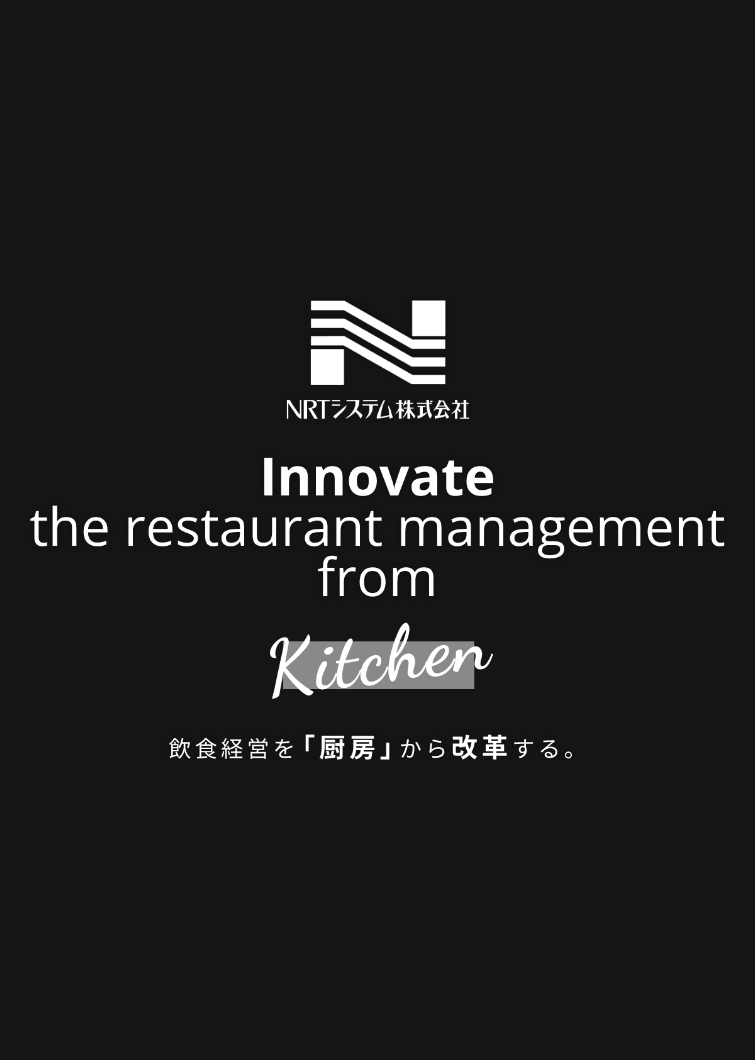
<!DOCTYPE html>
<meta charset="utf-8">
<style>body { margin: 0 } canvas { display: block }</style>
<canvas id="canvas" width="755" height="1060"></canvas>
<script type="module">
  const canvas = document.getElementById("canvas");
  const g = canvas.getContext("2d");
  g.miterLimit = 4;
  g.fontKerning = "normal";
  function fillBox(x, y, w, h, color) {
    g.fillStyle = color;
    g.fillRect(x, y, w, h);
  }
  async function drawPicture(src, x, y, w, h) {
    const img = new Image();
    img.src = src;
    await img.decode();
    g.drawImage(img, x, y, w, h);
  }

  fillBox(0, 0, 755, 1060, "#141516");
  await drawPicture("pic1.png", 30, 299, 695, 461);
</script>
